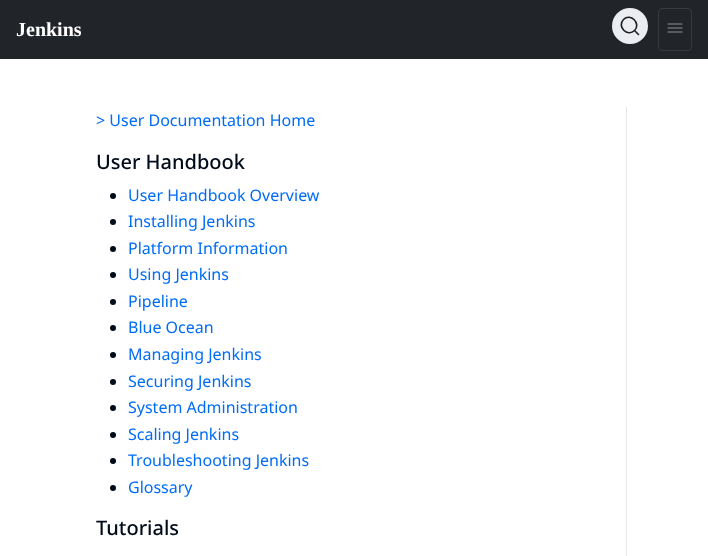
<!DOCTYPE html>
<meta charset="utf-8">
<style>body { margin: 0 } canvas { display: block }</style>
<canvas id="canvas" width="708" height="556"></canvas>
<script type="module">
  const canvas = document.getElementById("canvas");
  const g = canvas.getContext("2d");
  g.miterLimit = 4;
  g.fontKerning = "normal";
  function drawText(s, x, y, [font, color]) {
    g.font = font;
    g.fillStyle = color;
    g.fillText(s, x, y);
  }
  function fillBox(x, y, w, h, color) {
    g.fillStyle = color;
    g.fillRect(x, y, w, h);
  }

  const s1 = ["bold 20px Liberation Serif", "#FFFFFF"];
  const s2 = ["16px Noto Sans", "#006CF6"];
  const s3 = ["500 20px Noto Sans", "#000C1A"];

  fillBox(0, 0, 708, 556, "#FFFFFF");
  fillBox(0, 0, 708, 59, "#212529");
  drawText("Jenkins", 16, 36, s1);
  g.fillStyle = "#EBEDF0";
  g.beginPath();
  g.arc(630, 26, 18, 0, Math.PI * 2);
  g.fill();
  g.beginPath();
  g.moveTo(634.5, 30.5);
  g.lineTo(638.5, 34.5);
  g.lineTo(634.5, 30.5);
  g.bezierCurveTo(627.5, 37.5, 616.5, 26.5, 623.5, 19.5);
  g.bezierCurveTo(630.5, 12.5, 641.5, 23.5, 634.5, 30.5);
  g.closePath();
  g.strokeStyle = "#1C1E21";
  g.lineWidth = 1.6;
  g.lineCap = "round";
  g.lineJoin = "round";
  g.stroke();
  g.beginPath();
  g.roundRect(658.5, 8.5, 33, 42, 3.5);
  g.strokeStyle = "#373B3E";
  g.lineWidth = 1;
  g.lineJoin = "miter";
  g.stroke();
  g.beginPath();
  g.moveTo(668, 24);
  g.lineTo(682, 24);
  g.moveTo(668, 28);
  g.lineTo(682, 28);
  g.moveTo(668, 32);
  g.lineTo(682, 32);
  g.strokeStyle = "#909294";
  g.lineWidth = 1.2;
  g.stroke();
  fillBox(626, 107, 1, 449, "#E6E7E8");
  drawText("> User Documentation Home", 96, 126, s2);
  drawText("User Handbook", 96, 169, s3);
  g.beginPath();
  g.arc(113, 196, 3, 0, Math.PI * 2);
  g.fill();
  drawText("User Handbook Overview", 128, 201, s2);
  g.fillStyle = "#000C1A";
  g.beginPath();
  g.arc(113, 222, 3, 0, Math.PI * 2);
  g.fill();
  drawText("Installing Jenkins", 128, 227, s2);
  g.fillStyle = "#000C1A";
  g.beginPath();
  g.arc(113, 249, 3, 0, Math.PI * 2);
  g.fill();
  drawText("Platform Information", 128, 254, s2);
  g.fillStyle = "#000C1A";
  g.beginPath();
  g.arc(113, 275, 3, 0, Math.PI * 2);
  g.fill();
  drawText("Using Jenkins", 128, 280, s2);
  g.fillStyle = "#000C1A";
  g.beginPath();
  g.arc(113, 302, 3, 0, Math.PI * 2);
  g.fill();
  drawText("Pipeline", 128, 307, s2);
  g.fillStyle = "#000C1A";
  g.beginPath();
  g.arc(113, 328, 3, 0, Math.PI * 2);
  g.fill();
  drawText("Blue Ocean", 128, 333, s2);
  g.fillStyle = "#000C1A";
  g.beginPath();
  g.arc(113, 355, 3, 0, Math.PI * 2);
  g.fill();
  drawText("Managing Jenkins", 128, 360, s2);
  g.fillStyle = "#000C1A";
  g.beginPath();
  g.arc(113, 382, 3, 0, Math.PI * 2);
  g.fill();
  drawText("Securing Jenkins", 128, 387, s2);
  g.fillStyle = "#000C1A";
  g.beginPath();
  g.arc(113, 408, 3, 0, Math.PI * 2);
  g.fill();
  drawText("System Administration", 128, 413, s2);
  g.fillStyle = "#000C1A";
  g.beginPath();
  g.arc(113, 435, 3, 0, Math.PI * 2);
  g.fill();
  drawText("Scaling Jenkins", 128, 440, s2);
  g.fillStyle = "#000C1A";
  g.beginPath();
  g.arc(113, 461, 3, 0, Math.PI * 2);
  g.fill();
  drawText("Troubleshooting Jenkins", 128, 466, s2);
  g.fillStyle = "#000C1A";
  g.beginPath();
  g.arc(113, 488, 3, 0, Math.PI * 2);
  g.fill();
  drawText("Glossary", 128, 493, s2);
  drawText("Tutorials", 96, 535, s3);
</script>
